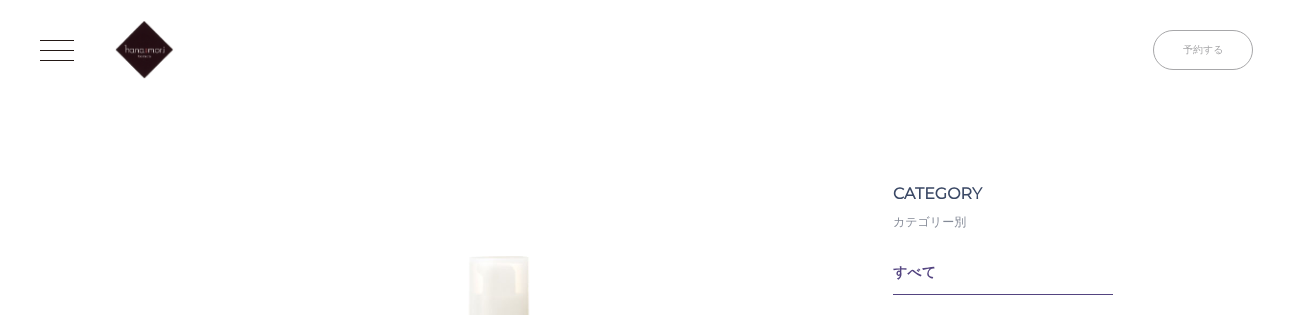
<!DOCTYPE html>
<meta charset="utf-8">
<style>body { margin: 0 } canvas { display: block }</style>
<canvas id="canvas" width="1293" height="315"></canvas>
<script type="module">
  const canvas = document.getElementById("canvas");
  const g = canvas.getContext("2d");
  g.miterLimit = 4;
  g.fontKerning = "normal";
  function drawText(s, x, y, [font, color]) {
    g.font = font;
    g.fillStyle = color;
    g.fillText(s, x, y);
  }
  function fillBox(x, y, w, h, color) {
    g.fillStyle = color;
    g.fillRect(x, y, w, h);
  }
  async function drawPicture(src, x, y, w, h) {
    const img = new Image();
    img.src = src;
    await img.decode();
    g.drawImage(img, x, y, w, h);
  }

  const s1 = ["500 10px WenQuanYi Zen Hei", "#A7A7A9"];
  const s2 = ["bold 16px Montserrat", "#3A4865"];
  const s3 = ["500 12px WenQuanYi Zen Hei", "#848A97"];
  const s4 = ["bold 14px WenQuanYi Zen Hei", "#534480"];

  fillBox(0, 0, 1293, 315, "#FFFFFF");
  await drawPicture("pic1.png", 40, 40, 34, 21);
  await drawPicture("pic2.png", 115, 21, 59, 58);
  g.beginPath();
  g.roundRect(1153.5, 30.5, 99, 39, 19.5);
  g.strokeStyle = "#A7A7A9";
  g.stroke();
  drawText("予約する", 1183, 53, s1);
  await drawPicture("pic3.png", 468, 256, 62, 59);
  drawText("CATEGORY", 893, 199, s2);
  drawText("カテゴリー別", 893, 226, s3);
  fillBox(893, 294, 220, 1, "#534480");
  drawText("すべて", 893, 277, s4);
</script>
